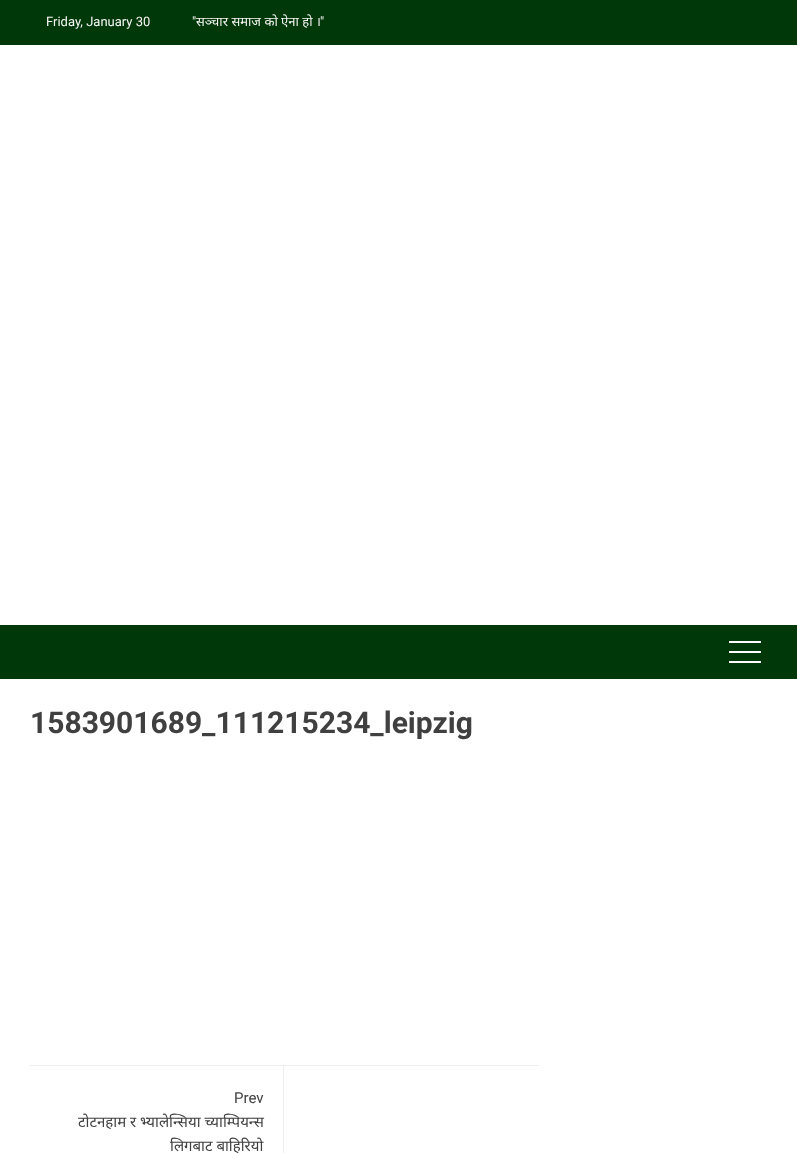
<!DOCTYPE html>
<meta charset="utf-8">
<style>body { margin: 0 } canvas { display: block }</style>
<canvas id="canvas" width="797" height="1153"></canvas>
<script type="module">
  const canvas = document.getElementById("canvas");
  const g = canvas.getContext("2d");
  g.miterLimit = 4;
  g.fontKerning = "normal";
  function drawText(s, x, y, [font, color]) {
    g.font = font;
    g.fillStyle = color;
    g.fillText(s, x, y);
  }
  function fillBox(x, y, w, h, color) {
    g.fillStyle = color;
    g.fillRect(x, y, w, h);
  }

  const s1 = ["13px Roboto", "#F6F6F6"];
  const s2 = ["13px Noto Sans", "#F6F6F6"];
  const s3 = ["bold 30px Roboto", "#404040"];
  const s4 = ["15px Roboto", "#404040"];
  const s5 = ["15px Noto Sans", "#404040"];

  fillBox(0, 0, 797, 1153, "#FFFFFF");
  fillBox(0, 0, 797, 45, "#003809");
  drawText("Friday, January 30", 46, 26, s1);
  drawText("\"", 192, 26, s1);
  drawText("सञ्चार समाज को ऐना हो ।", 196, 26, s2);
  drawText("\"", 320, 26, s1);
  fillBox(0, 625, 797, 54, "#003809");
  fillBox(729, 641, 32, 2, "#FFFFFF");
  fillBox(729, 661, 32, 2, "#FFFFFF");
  fillBox(729, 651, 32, 2, "#FFFFFF");
  drawText("1583901689_111215234_leipzig", 30, 733, s3);
  fillBox(30, 1065, 509, 1, "#EEEEEE");
  fillBox(283, 1066, 1, 87, "#EEEEEE");
  drawText("Prev", 234, 1103, s4);
  drawText("टोटनहाम र भ्यालेन्सिया च्याम्पियन्स", 78, 1127, s5);
  drawText("लिगबाट बाहिरियो", 170, 1151, s5);
</script>
